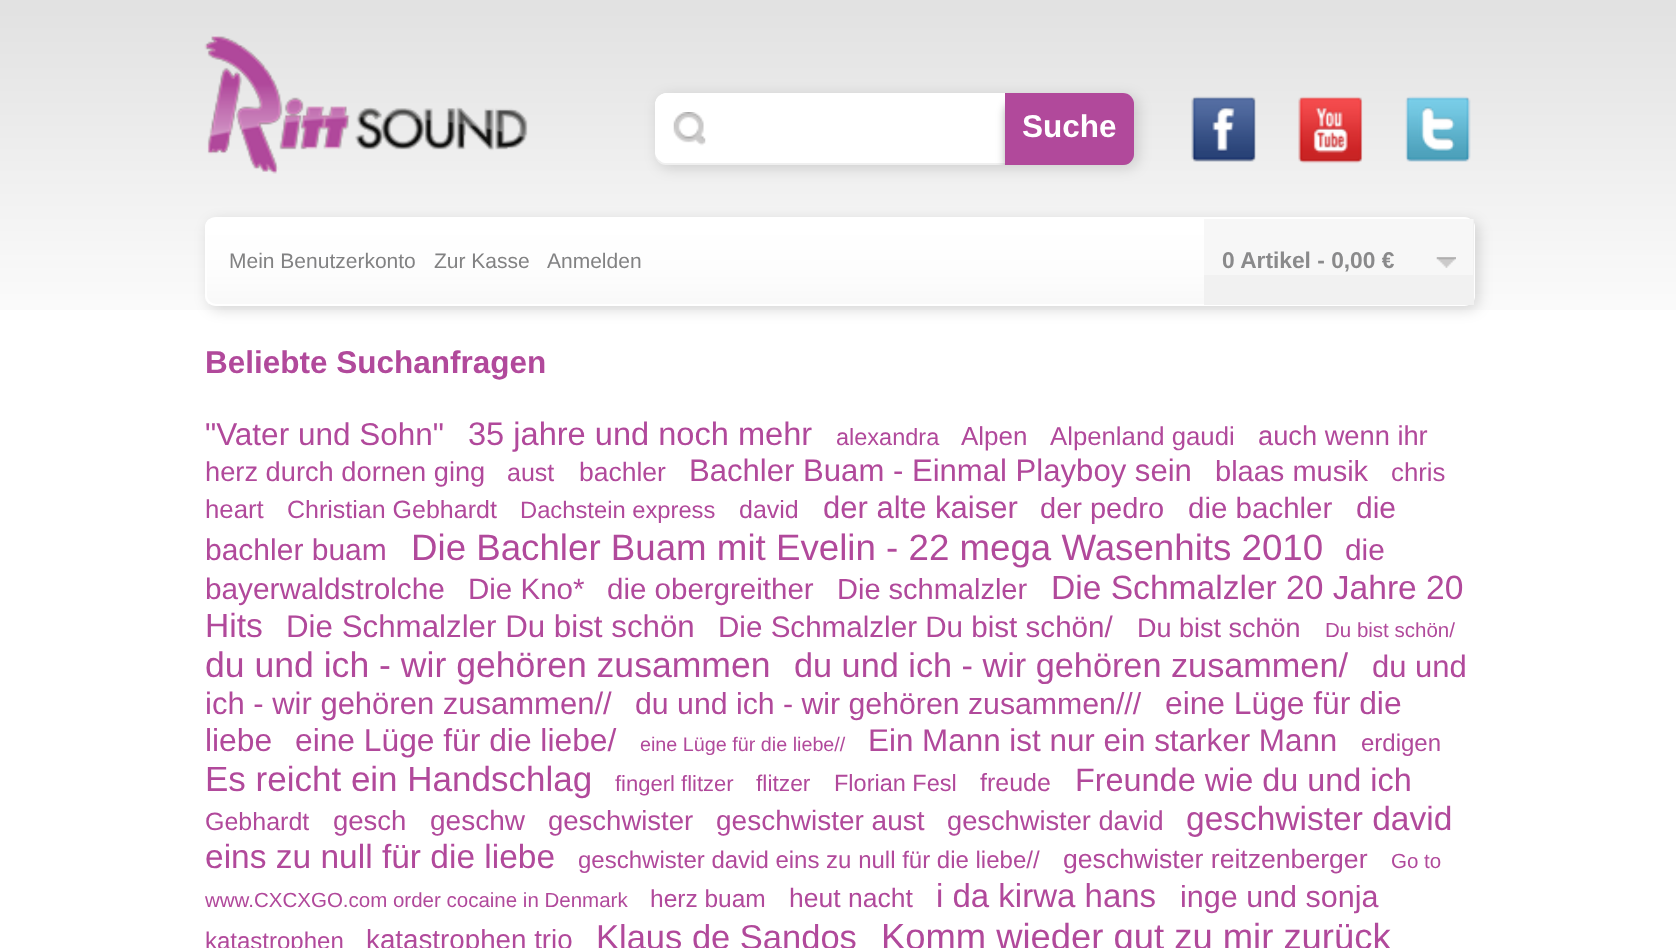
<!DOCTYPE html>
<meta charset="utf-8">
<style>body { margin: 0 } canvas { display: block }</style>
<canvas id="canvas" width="1676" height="948"></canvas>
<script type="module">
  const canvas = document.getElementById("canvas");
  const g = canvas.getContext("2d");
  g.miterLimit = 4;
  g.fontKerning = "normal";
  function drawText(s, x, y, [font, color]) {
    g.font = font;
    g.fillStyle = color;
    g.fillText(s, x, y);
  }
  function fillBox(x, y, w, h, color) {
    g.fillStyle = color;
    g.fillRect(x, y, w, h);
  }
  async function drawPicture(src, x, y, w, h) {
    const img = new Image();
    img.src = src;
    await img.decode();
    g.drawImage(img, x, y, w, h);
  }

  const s1 = ["bold 31.5px Liberation Sans", "#FFFFFF"];
  const s2 = ["21px Liberation Sans", "#828283"];
  const s3 = ["bold 22.75px Liberation Sans", "#8A8A8B"];
  const s4 = ["bold 31.5px Liberation Sans", "#B1499B"];
  const s5 = ["31.5px Liberation Sans", "#B1499B"];
  const s6 = ["32.6px Liberation Sans", "#B1499B"];
  const s7 = ["23.5px Liberation Sans", "#B1499B"];
  const s8 = ["26px Liberation Sans", "#B1499B"];
  const s9 = ["25.75px Liberation Sans", "#B1499B"];
  const s10 = ["27.25px Liberation Sans", "#B1499B"];
  const s11 = ["25px Liberation Sans", "#B1499B"];
  const s12 = ["26.5px Liberation Sans", "#B1499B"];
  const s13 = ["31.1px Liberation Sans", "#B1499B"];
  const s14 = ["29px Liberation Sans", "#B1499B"];
  const s15 = ["23.75px Liberation Sans", "#B1499B"];
  const s16 = ["31px Liberation Sans", "#B1499B"];
  const s17 = ["29.5px Liberation Sans", "#B1499B"];
  const s18 = ["30px Liberation Sans", "#B1499B"];
  const s19 = ["36.7px Liberation Sans", "#B1499B"];
  const s20 = ["29.75px Liberation Sans", "#B1499B"];
  const s21 = ["33.6px Liberation Sans", "#B1499B"];
  const s22 = ["31.3px Liberation Sans", "#B1499B"];
  const s23 = ["29.6px Liberation Sans", "#B1499B"];
  const s24 = ["27px Liberation Sans", "#B1499B"];
  const s25 = ["20.5px Liberation Sans", "#B1499B"];
  const s26 = ["35.6px Liberation Sans", "#B1499B"];
  const s27 = ["34.25px Liberation Sans", "#B1499B"];
  const s28 = ["30.25px Liberation Sans", "#B1499B"];
  const s29 = ["31.75px Liberation Sans", "#B1499B"];
  const s30 = ["19.75px Liberation Sans", "#B1499B"];
  const s31 = ["31.4px Liberation Sans", "#B1499B"];
  const s32 = ["24px Liberation Sans", "#B1499B"];
  const s33 = ["35px Liberation Sans", "#B1499B"];
  const s34 = ["22px Liberation Sans", "#B1499B"];
  const s35 = ["22.75px Liberation Sans", "#B1499B"];
  const s36 = ["32.4px Liberation Sans", "#B1499B"];
  const s37 = ["27.5px Liberation Sans", "#B1499B"];
  const s38 = ["28px Liberation Sans", "#B1499B"];
  const s39 = ["33.5px Liberation Sans", "#B1499B"];
  const s40 = ["26.6px Liberation Sans", "#B1499B"];
  const s41 = ["24.5px Liberation Sans", "#B1499B"];
  const s42 = ["33px Liberation Sans", "#B1499B"];
  const s43 = ["30.5px Liberation Sans", "#B1499B"];
  const s44 = ["27.75px Liberation Sans", "#B1499B"];
  const s45 = ["34.5px Liberation Sans", "#B1499B"];
  const s46 = ["36.4px Liberation Sans", "#B1499B"];

  fillBox(0, 0, 1676, 948, "#FFFFFF");
  await drawPicture("pic1.png", 0, 0, 1676, 310);
  await drawPicture("pic2.png", 204, 35, 324, 139);
  g.save();
  g.beginPath();
  g.moveTo(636, 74);
  g.lineTo(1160, 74);
  g.lineTo(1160, 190);
  g.lineTo(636, 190);
  g.closePath();
  g.moveTo(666, 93);
  g.lineTo(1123, 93);
  g.bezierCurveTo(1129, 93, 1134, 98, 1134, 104);
  g.lineTo(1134, 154);
  g.bezierCurveTo(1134, 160, 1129, 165, 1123, 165);
  g.lineTo(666, 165);
  g.bezierCurveTo(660, 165, 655, 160, 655, 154);
  g.lineTo(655, 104);
  g.bezierCurveTo(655, 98, 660, 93, 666, 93);
  g.closePath();
  g.clip("evenodd");
  g.fillStyle = "rgba(0, 0, 0, 0.14)";
  g.filter = "blur(7px)";
  g.beginPath();
  g.roundRect(658, 96, 480, 72, 11);
  g.fill();
  g.filter = "none";
  g.restore();
  g.save();
  g.beginPath();
  g.roundRect(655, 93, 479, 72, 11);
  g.clip();
  g.beginPath();
  g.roundRect(655, 93, 350, 70, [12, 0, 0, 12]);
  g.fill();
  g.restore();
  await drawPicture("pic3.png", 673, 112, 33, 34);
  g.beginPath();
  g.roundRect(656, 94, 348, 68, [11, 0, 0, 11]);
  g.strokeStyle = "#FFFFFF";
  g.lineWidth = 2;
  g.stroke();
  g.save();
  g.beginPath();
  g.roundRect(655, 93, 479, 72, 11);
  g.clip();
  g.fillStyle = "rgba(0, 0, 0, 0.31)";
  g.filter = "blur(4.5px)";
  g.beginPath();
  g.roundRect(1005, 102, 129, 71, 11);
  g.fill();
  g.filter = "none";
  g.restore();
  g.fillStyle = "#B1499B";
  g.beginPath();
  g.roundRect(1005, 93, 129, 72, [0, 11, 11, 0]);
  g.fill();
  drawText("Suche", 1022, 137, s1);
  await drawPicture("pic4.png", 1191, 96, 65, 66);
  await drawPicture("pic5.png", 1298, 96, 65, 68);
  await drawPicture("pic6.png", 1405, 96, 66, 66);
  g.fillStyle = "rgba(0, 0, 0, 0.14)";
  g.filter = "blur(7px)";
  g.beginPath();
  g.roundRect(208, 221, 1271, 89, 11);
  g.fill();
  g.filter = "none";
  await drawPicture("pic7.png", 205, 219, 1270, 85);
  g.beginPath();
  g.roundRect(206, 218, 1268, 87, 10);
  g.stroke();
  drawText("Mein Benutzerkonto", 229, 268, s2);
  drawText("Zur Kasse", 434, 268, s2);
  drawText("Anmelden", 547, 268, s2);
  fillBox(1204, 219, 270, 86, "#F1F1F1");
  fillBox(1204, 219, 269, 56, "#F7F7F7");
  await drawPicture("pic8.png", 1436, 257, 20, 11);
  drawText("0 Artikel - 0,00 €", 1222, 268, s3);
  drawText("Beliebte Suchanfragen", 205, 373, s4);
  drawText("\"Vater und Sohn\"", 205, 445, s5);
  drawText("35 jahre und noch mehr", 468, 445, s6);
  drawText("alexandra", 836, 445, s7);
  drawText("Alpen", 961, 445, s8);
  drawText("Alpenland gaudi", 1050, 445, s9);
  drawText("auch wenn ihr", 1258, 445, s10);
  drawText("herz durch dornen ging", 205, 481, s10);
  drawText("aust", 507, 481, s11);
  drawText("bachler", 579, 481, s12);
  drawText("Bachler Buam - Einmal Playboy sein", 689, 481, s13);
  drawText("blaas musik", 1215, 481, s14);
  drawText("chris", 1391, 481, s9);
  drawText("heart", 205, 518, s9);
  drawText("Christian Gebhardt", 287, 518, s11);
  drawText("Dachstein express", 520, 518, s15);
  drawText("david", 739, 518, s11);
  drawText("der alte kaiser", 823, 518, s16);
  drawText("der pedro", 1040, 518, s14);
  drawText("die bachler", 1188, 518, s17);
  drawText("die", 1356, 518, s18);
  drawText("bachler buam", 205, 560, s18);
  drawText("Die Bachler Buam mit Evelin - 22 mega Wasenhits 2010", 411, 560, s19);
  drawText("die", 1345, 560, s20);
  drawText("bayerwaldstrolche", 205, 599, s20);
  drawText("Die Kno*", 468, 599, s17);
  drawText("die obergreither", 607, 599, s17);
  drawText("Die schmalzler", 837, 599, s14);
  drawText("Die Schmalzler 20 Jahre 20", 1051, 599, s21);
  drawText("Hits", 205, 637, s21);
  drawText("Die Schmalzler Du bist schön", 286, 637, s22);
  drawText("Die Schmalzler Du bist schön/", 718, 637, s23);
  drawText("Du bist schön", 1137, 637, s24);
  drawText("Du bist schön/", 1325, 637, s25);
  drawText("du und ich - wir gehören zusammen", 205, 677, s26);
  drawText("du und ich - wir gehören zusammen/", 794, 677, s27);
  drawText("du und", 1372, 677, s16);
  drawText("ich - wir gehören zusammen//", 205, 714, s16);
  drawText("du und ich - wir gehören zusammen///", 635, 714, s28);
  drawText("eine Lüge für die", 1165, 714, s29);
  drawText("liebe", 205, 751, s29);
  drawText("eine Lüge für die liebe/", 295, 751, s29);
  drawText("eine Lüge für die liebe//", 640, 751, s30);
  drawText("Ein Mann ist nur ein starker Mann", 868, 751, s31);
  drawText("erdigen", 1361, 751, s32);
  drawText("Es reicht ein Handschlag", 205, 791, s33);
  drawText("fingerl flitzer", 615, 791, s34);
  drawText("flitzer", 756, 791, s35);
  drawText("Florian Fesl", 834, 791, s7);
  drawText("freude", 980, 791, s11);
  drawText("Freunde wie du und ich", 1075, 791, s36);
  drawText("Gebhardt", 205, 830, s11);
  drawText("gesch", 333, 830, s37);
  drawText("geschw", 430, 830, s38);
  drawText("geschwister", 548, 830, s37);
  drawText("geschwister aust", 716, 830, s38);
  drawText("geschwister david", 947, 830, s10);
  drawText("geschwister david", 1186, 830, s39);
  drawText("eins zu null für die liebe", 205, 868, s39);
  drawText("geschwister david eins zu null für die liebe//", 578, 868, s32);
  drawText("geschwister reitzenberger", 1063, 868, s40);
  drawText("Go to", 1391, 868, s25);
  drawText("www.CXCXGO.com order cocaine in Denmark", 205, 907, s25);
  drawText("herz buam", 650, 907, s41);
  drawText("heut nacht", 789, 907, s12);
  drawText("i da kirwa hans", 936, 907, s42);
  drawText("inge und sonja", 1180, 907, s43);
  drawText("katastrophen", 205, 949, s32);
  drawText("katastrophen trio", 366, 949, s44);
  drawText("Klaus de Sandos", 596, 949, s45);
  drawText("Komm wieder gut zu mir zurück", 881, 949, s46);
</script>
